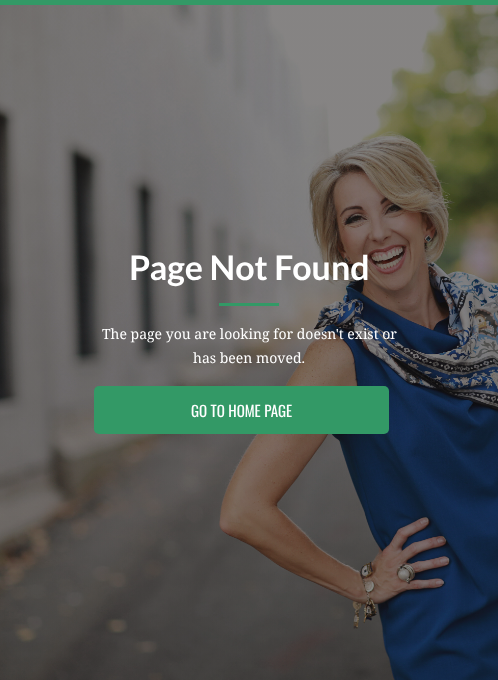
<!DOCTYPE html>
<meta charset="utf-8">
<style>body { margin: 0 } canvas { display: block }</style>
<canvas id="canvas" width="498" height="680"></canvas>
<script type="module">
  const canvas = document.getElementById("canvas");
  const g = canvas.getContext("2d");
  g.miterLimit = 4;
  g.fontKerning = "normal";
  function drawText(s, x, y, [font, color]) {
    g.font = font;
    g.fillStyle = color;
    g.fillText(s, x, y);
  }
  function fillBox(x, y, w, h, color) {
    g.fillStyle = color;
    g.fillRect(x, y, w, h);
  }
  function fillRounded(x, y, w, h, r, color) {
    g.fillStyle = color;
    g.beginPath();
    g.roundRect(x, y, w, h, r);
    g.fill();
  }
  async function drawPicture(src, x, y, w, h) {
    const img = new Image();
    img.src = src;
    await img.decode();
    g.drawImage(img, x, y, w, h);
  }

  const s1 = ["bold 34px Lato", "#FFFFFF"];
  const s2 = ["14px Noto Serif", "#FFFFFF"];
  const s3 = ["15px Oswald", "#FFFFFF"];

  fillBox(0, 0, 498, 680, "#FFFFFF");
  await drawPicture("pic1.png", 0, 5, 498, 675);
  fillBox(0, 0, 498, 5, "#339966");
  drawText("Page Not Found", 129, 280, s1);
  fillBox(219, 303, 60, 3, "#339966");
  drawText("The page you are looking for doesn't exist or", 102, 339, s2);
  drawText("has been moved.", 193, 363, s2);
  fillRounded(94, 386, 295, 48, 5, "#339966");
  drawText("GO TO HOME PAGE", 191, 417, s3);
</script>
